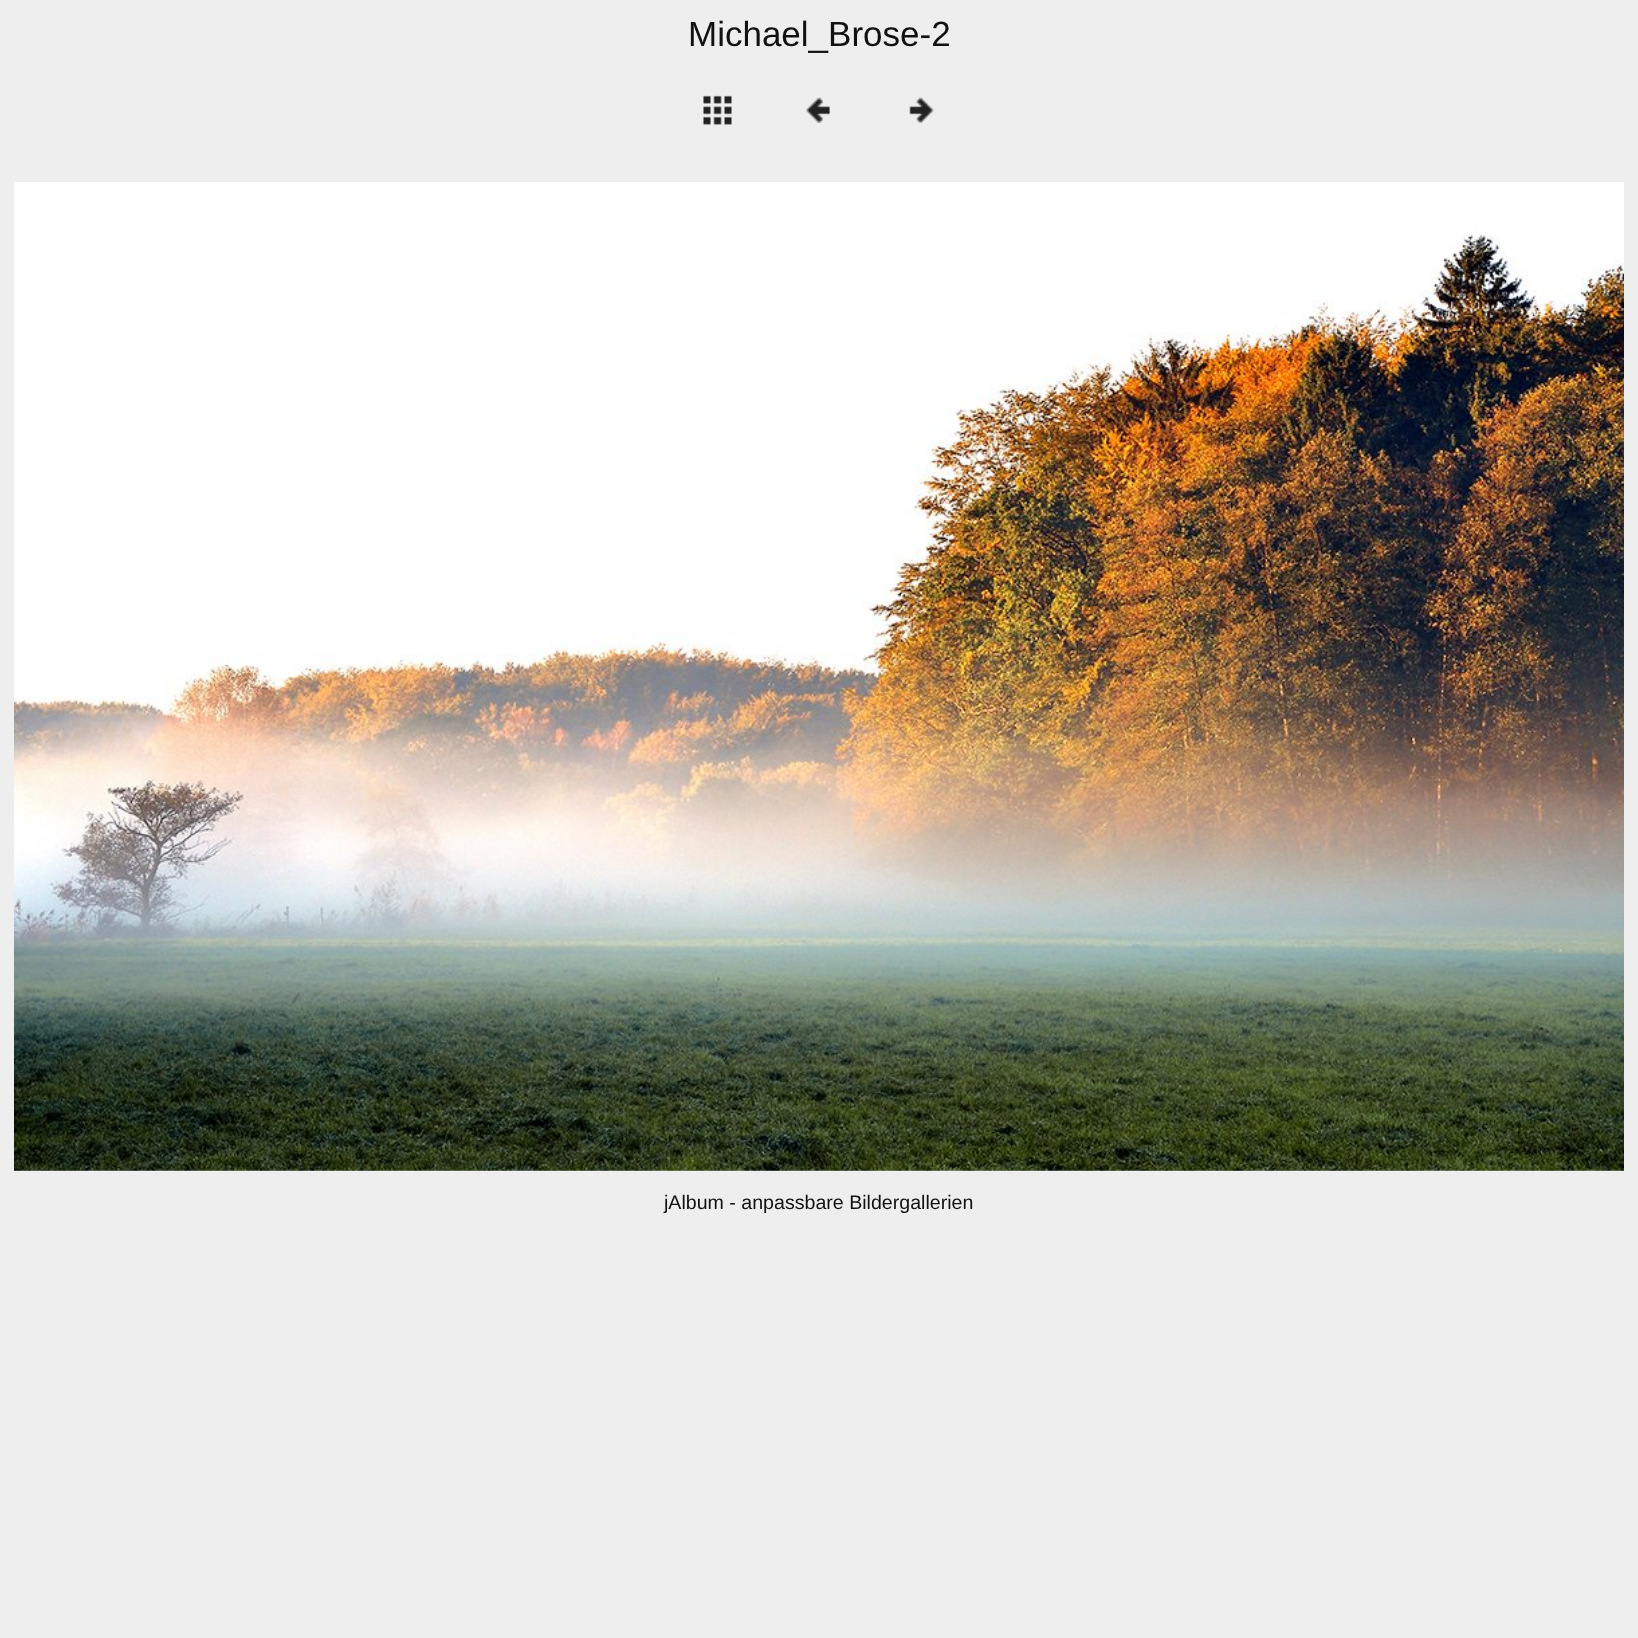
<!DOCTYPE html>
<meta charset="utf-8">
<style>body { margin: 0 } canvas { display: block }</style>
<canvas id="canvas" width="1638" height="1638"></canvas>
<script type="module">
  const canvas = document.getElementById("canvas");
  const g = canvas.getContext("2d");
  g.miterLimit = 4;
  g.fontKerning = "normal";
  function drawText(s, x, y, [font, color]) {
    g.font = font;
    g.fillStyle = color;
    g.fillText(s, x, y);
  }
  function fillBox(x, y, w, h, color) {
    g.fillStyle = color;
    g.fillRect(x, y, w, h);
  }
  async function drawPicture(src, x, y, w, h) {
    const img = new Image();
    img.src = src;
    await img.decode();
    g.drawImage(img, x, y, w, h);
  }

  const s1 = ["35px Liberation Sans", "#111111"];
  const s2 = ["19.6px Liberation Sans", "#111111"];

  fillBox(0, 0, 1638, 1638, "#EEEEEE");
  drawText("Michael_Brose-2", 688, 46, s1);
  await drawPicture("pic1.png", 703, 95, 29, 30);
  await drawPicture("pic2.png", 806, 97, 24, 26);
  await drawPicture("pic3.png", 909, 97, 25, 26);
  await drawPicture("pic4.png", 14, 182, 1610, 989);
  drawText("jAlbum - anpassbare Bildergallerien", 664, 1209, s2);
</script>
